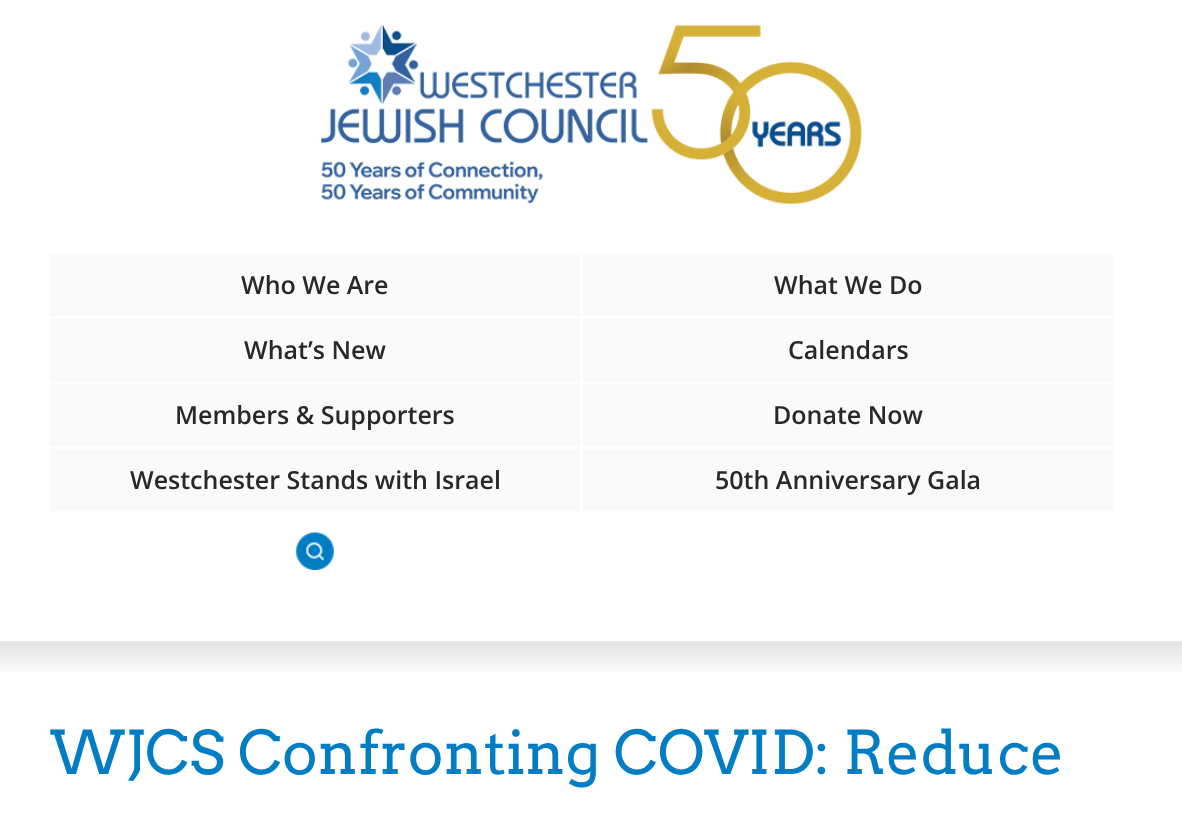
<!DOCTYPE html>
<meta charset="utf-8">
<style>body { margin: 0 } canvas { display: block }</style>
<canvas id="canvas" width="1182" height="815"></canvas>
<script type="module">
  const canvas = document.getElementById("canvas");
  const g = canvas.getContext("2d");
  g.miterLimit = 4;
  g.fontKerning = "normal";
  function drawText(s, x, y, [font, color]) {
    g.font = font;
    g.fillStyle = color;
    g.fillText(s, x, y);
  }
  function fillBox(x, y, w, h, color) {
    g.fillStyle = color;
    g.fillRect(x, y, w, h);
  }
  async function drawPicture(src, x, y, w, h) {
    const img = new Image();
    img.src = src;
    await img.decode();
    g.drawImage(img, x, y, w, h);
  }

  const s1 = ["600 25px Open Sans", "#282828"];
  const s2 = ["60px Arvo", "#017DC3"];

  fillBox(0, 0, 1182, 815, "#FFFFFF");
  await drawPicture("pic1.png", 321, 25, 541, 179);
  fillBox(50, 254, 530, 62, "#FAFAFA");
  drawText("Who We Are", 241, 294, s1);
  fillBox(583, 254, 531, 62, "#FAFAFA");
  drawText("What We Do", 774, 294, s1);
  fillBox(50, 319, 530, 62, "#FAFAFA");
  drawText("What’s New", 244, 359, s1);
  fillBox(583, 319, 531, 62, "#FAFAFA");
  drawText("Calendars", 788, 359, s1);
  fillBox(50, 384, 530, 62, "#FAFAFA");
  drawText("Members & Supporters", 175, 424, s1);
  fillBox(583, 384, 531, 62, "#FAFAFA");
  drawText("Donate Now", 773, 424, s1);
  fillBox(50, 449, 530, 62, "#FAFAFA");
  drawText("Westchester Stands with Israel", 130, 489, s1);
  fillBox(583, 449, 531, 62, "#FAFAFA");
  drawText("50th Anniversary Gala", 715, 489, s1);
  await drawPicture("pic2.png", 296, 532, 38, 38);
  await drawPicture("pic3.png", 0, 641, 1182, 31);
  drawText("WJCS Confronting COVID: Reduce", 50, 774, s2);
</script>
